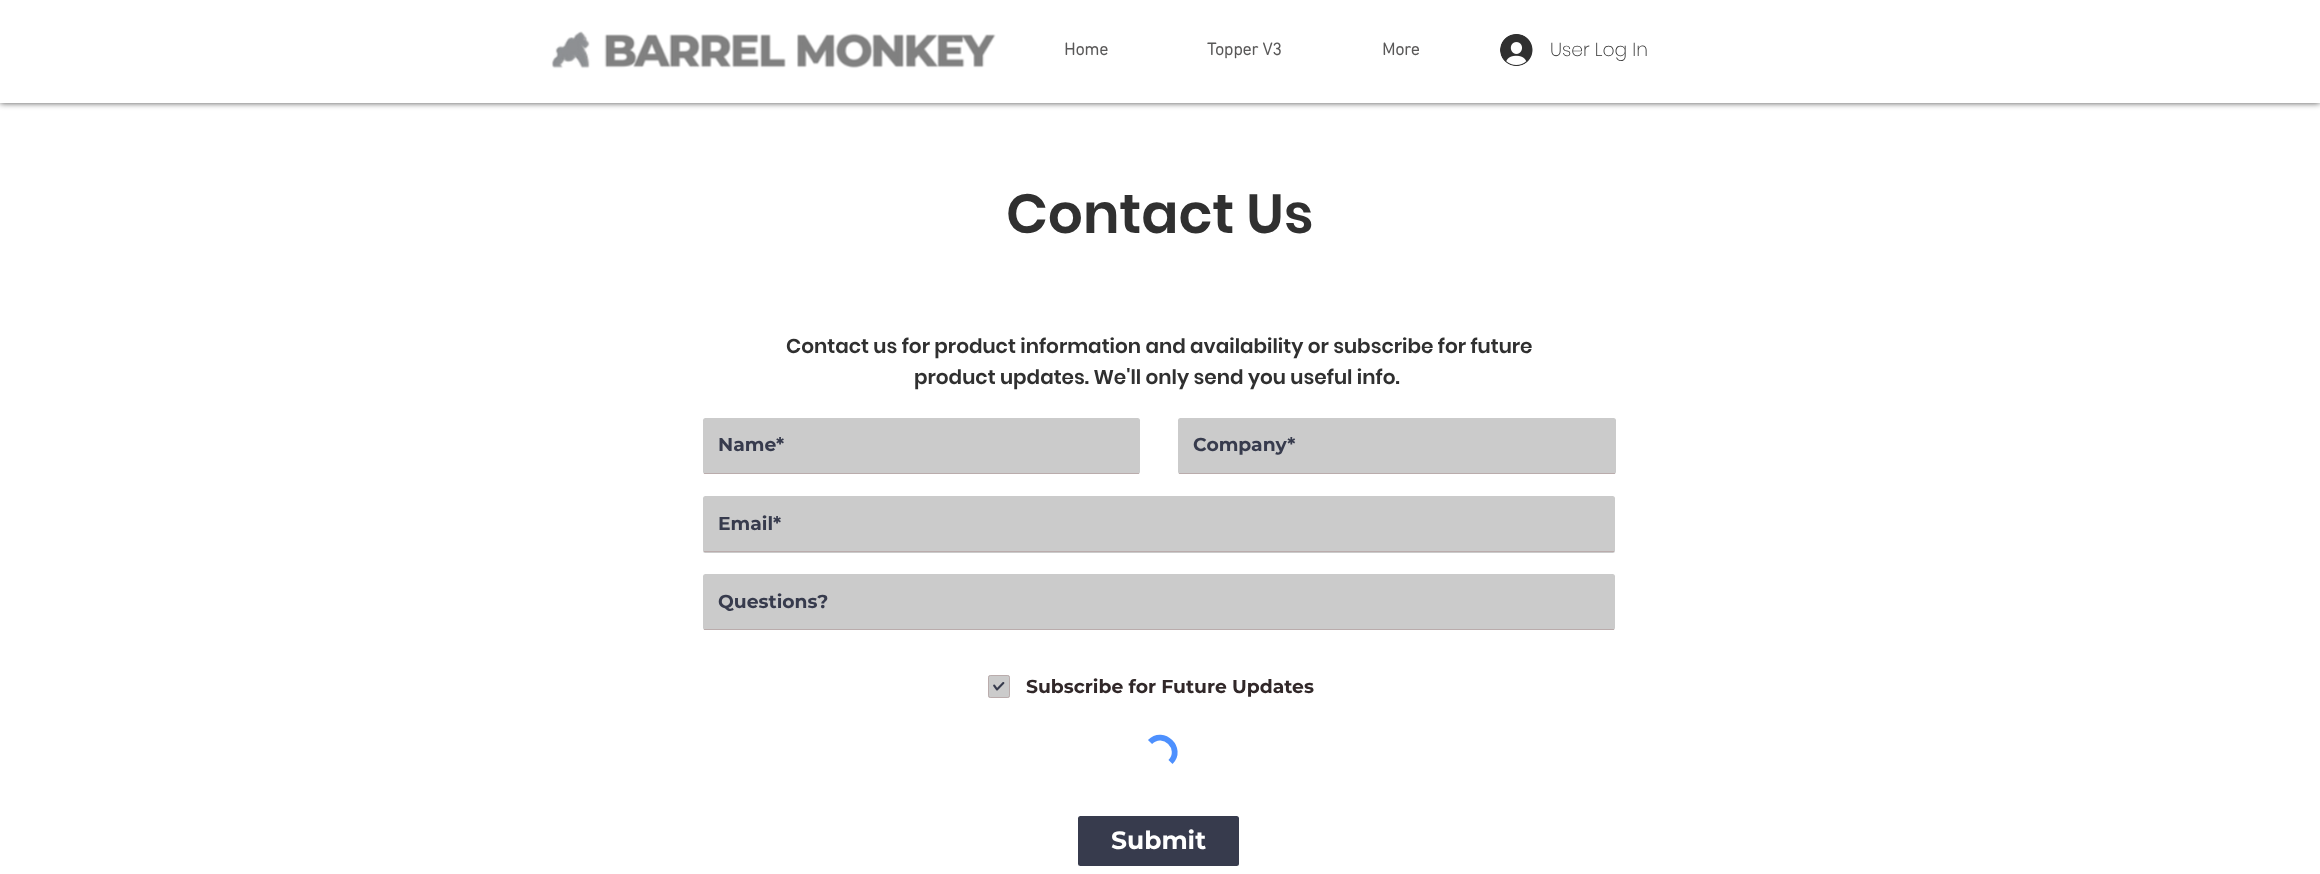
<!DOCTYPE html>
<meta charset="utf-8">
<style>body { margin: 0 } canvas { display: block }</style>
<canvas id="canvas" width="2320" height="874"></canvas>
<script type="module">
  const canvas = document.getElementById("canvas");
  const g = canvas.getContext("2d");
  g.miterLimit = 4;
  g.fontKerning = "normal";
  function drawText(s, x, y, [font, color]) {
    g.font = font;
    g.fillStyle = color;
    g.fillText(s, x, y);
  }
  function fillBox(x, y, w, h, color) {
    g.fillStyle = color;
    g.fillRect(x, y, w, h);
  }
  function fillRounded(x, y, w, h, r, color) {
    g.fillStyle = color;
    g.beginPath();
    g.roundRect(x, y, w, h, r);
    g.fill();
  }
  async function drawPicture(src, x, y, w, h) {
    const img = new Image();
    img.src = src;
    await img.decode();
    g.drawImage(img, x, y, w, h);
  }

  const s1 = ["bold 17.5px 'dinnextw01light'", "#595858"];
  const s2 = ["200 18.75px Poppins", "#303030"];
  const s3 = ["600 55px Poppins", "#303030"];
  const s4 = ["600 20px Poppins", "#303030"];
  const s5 = ["bold 18.75px Montserrat", "#373B4D"];
  const s6 = ["bold 18.75px Montserrat", "#312829"];
  const s7 = ["bold 25px Montserrat", "#FFFFFF"];

  fillBox(0, 0, 2320, 874, "#FFFFFF");
  g.fillStyle = "rgba(0, 0, 0, 0.7)";
  g.filter = "blur(3px)";
  g.beginPath();
  g.rect(0, 0, 2320, 103);
  g.fill();
  g.filter = "none";
  fillBox(0, 0, 2320, 103, "#FFFFFF");
  await drawPicture("pic1.png", 551, 31, 445, 38);
  drawText("Home", 1064, 55, s1);
  drawText("Topper V3", 1207, 55, s1);
  drawText("More", 1382, 55, s1);
  await drawPicture("pic2.png", 1500, 34, 33, 32);
  drawText("User Log In", 1550, 56, s2);
  drawText("Contact Us", 1006, 233, s3);
  drawText("Contact us for product information and availability or subscribe for future", 786, 353, s4);
  drawText("product updates. We'll only send you useful info.", 914, 384, s4);
  fillRounded(703, 418, 437, 56, 2.5, "#CBCBCB");
  fillBox(704, 473, 435, 1, "rgba(183, 167, 167, 0.86)");
  drawText("Name*", 718, 451, s5);
  fillRounded(1178, 418, 438, 56, 2.5, "#CBCBCB");
  fillBox(1179, 473, 436, 1, "rgba(183, 167, 167, 0.86)");
  drawText("Company*", 1193, 451, s5);
  fillRounded(703, 496, 912, 57, 2.5, "#CBCBCB");
  fillBox(704, 551, 910, 1, "#BAACAC");
  drawText("Email*", 718, 530, s5);
  fillRounded(703, 574, 912, 56, 2.5, "#CBCBCB");
  fillBox(704, 629, 910, 1, "rgba(183, 167, 167, 0.86)");
  drawText("Questions?", 718, 608, s5);
  fillRounded(988, 675, 22, 23, 2.5, "#CBCBCB");
  g.beginPath();
  g.roundRect(988.5, 675.5, 21, 22, 2);
  g.strokeStyle = "rgba(183, 167, 167, 0.86)";
  g.stroke();
  drawText("Subscribe for Future Updates", 1026, 693, s6);
  await drawPicture("pic3.png", 993, 682, 12, 9);
  g.beginPath();
  g.moveTo(1150, 742);
  g.bezierCurveTo(1163.5, 728.5, 1183.5, 749, 1170.5, 762);
  g.strokeStyle = "#4D90FE";
  g.lineWidth = 5.8;
  g.stroke();
  fillRounded(1078, 816, 161, 50, 2.5, "#373B4D");
  drawText("Submit", 1111, 849, s7);
</script>
